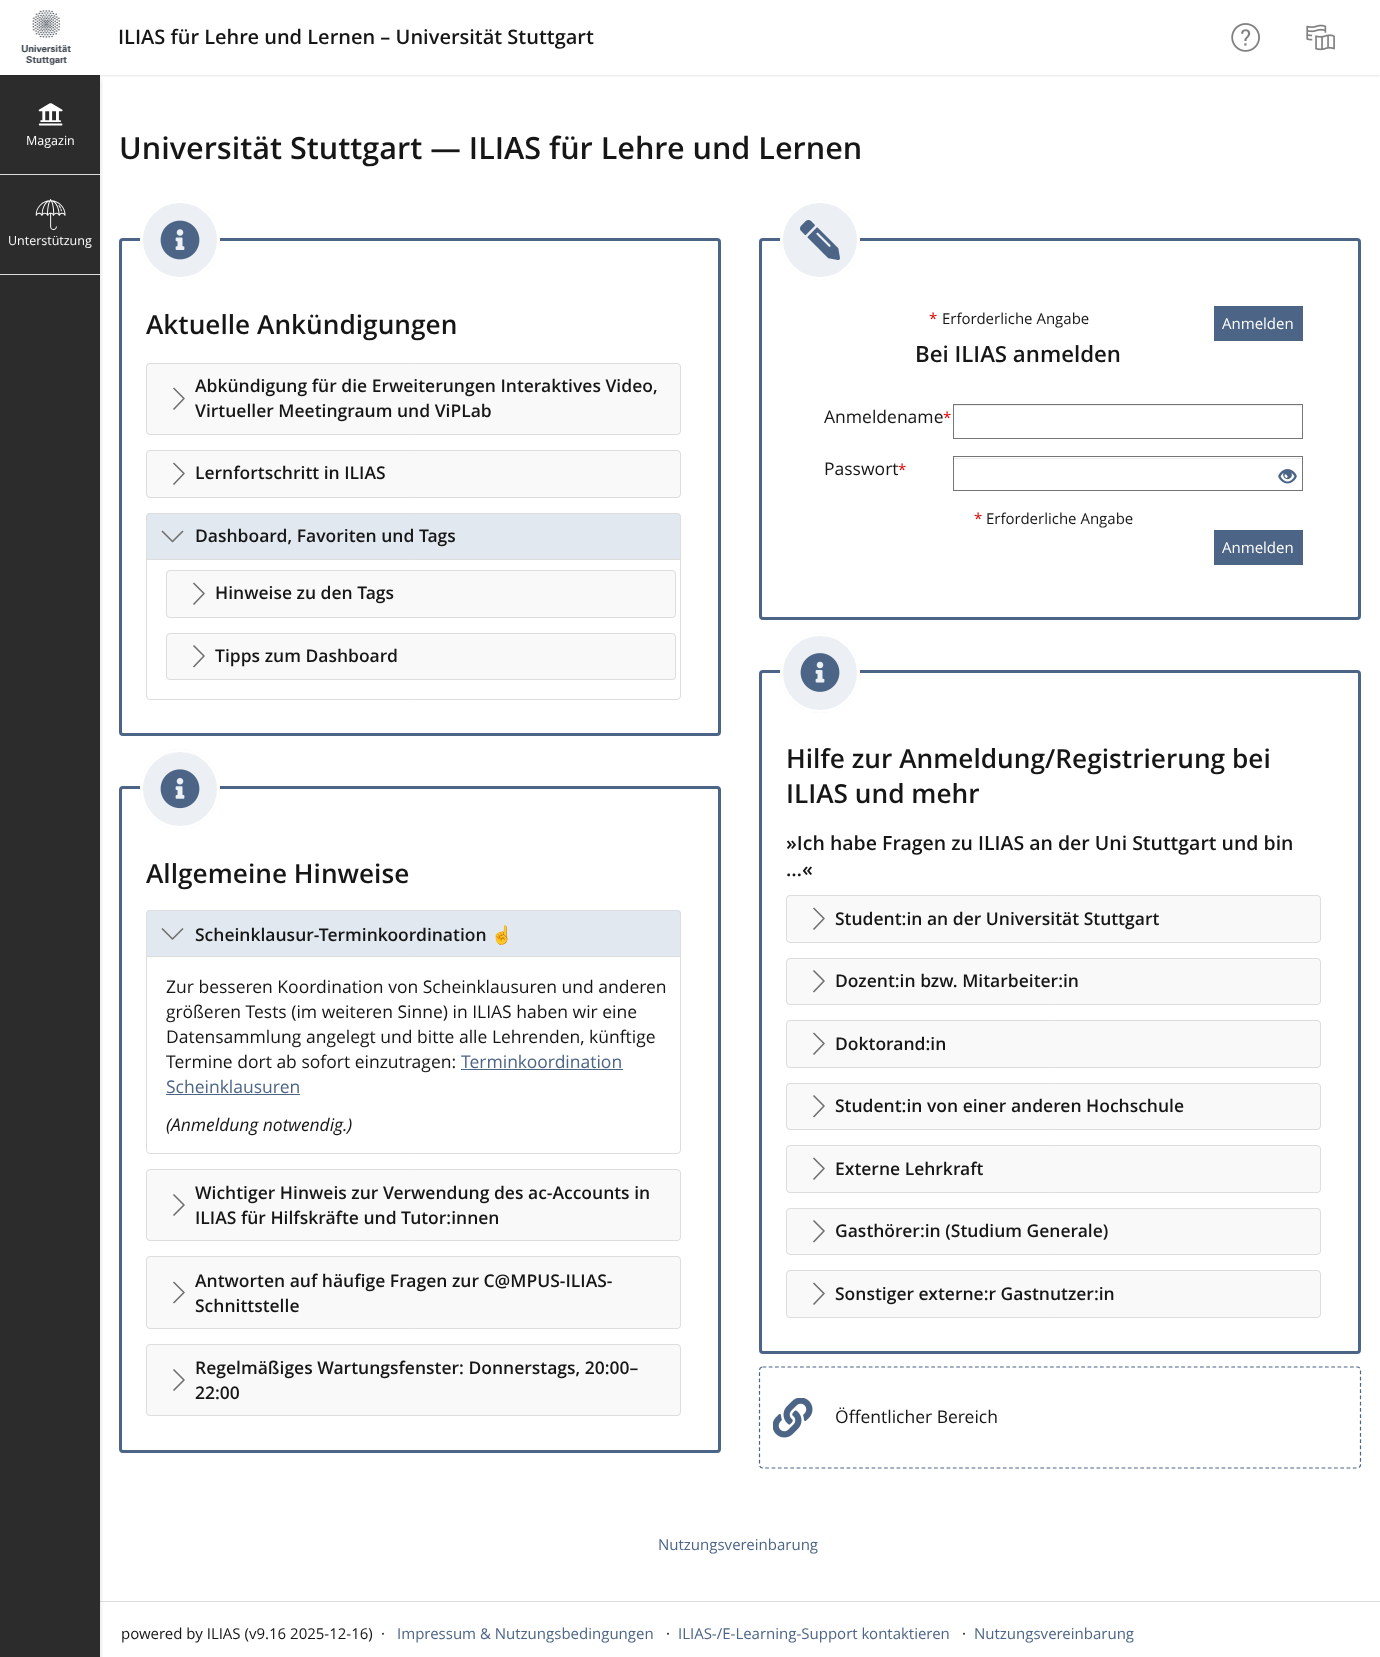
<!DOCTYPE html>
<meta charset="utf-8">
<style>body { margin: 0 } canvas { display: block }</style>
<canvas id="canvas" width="1380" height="1657"></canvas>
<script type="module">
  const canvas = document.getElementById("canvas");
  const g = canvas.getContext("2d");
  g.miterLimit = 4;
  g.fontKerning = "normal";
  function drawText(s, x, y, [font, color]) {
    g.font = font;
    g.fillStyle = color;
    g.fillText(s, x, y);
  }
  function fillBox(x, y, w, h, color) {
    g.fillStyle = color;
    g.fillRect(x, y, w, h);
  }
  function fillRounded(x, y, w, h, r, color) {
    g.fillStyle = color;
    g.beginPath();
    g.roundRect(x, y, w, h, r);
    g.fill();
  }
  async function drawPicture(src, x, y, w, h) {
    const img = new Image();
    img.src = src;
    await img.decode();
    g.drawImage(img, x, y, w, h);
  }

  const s1 = ["600 20px Open Sans", "#161616"];
  const s2 = ["12.5px Open Sans", "#FFFFFF"];
  const s3 = ["600 30.6px Open Sans", "#161616"];
  const s4 = ["600 26.25px Open Sans", "#161616"];
  const s5 = ["600 17.5px Open Sans", "#161616"];
  const s6 = ["bold 17.5px Noto Color Emoji", "#161616"];
  const s7 = ["17.5px Open Sans", "#161616"];
  const s8 = ["17.5px Open Sans", "#4C6586"];
  const s9 = ["italic 17.5px Open Sans", "#161616"];
  const s10 = ["15px Open Sans", "#DD0000"];
  const s11 = ["15px Open Sans", "#161616"];
  const s12 = ["15px Open Sans", "#FFFFFF"];
  const s13 = ["600 22.25px Open Sans", "#161616"];
  const s14 = ["600 19.5px Open Sans", "#161616"];
  const s15 = ["15px Open Sans", "#4C6586"];

  fillBox(0, 0, 1380, 1657, "#FFFFFF");
  fillBox(0, 75, 100, 1582, "#2C2C2C");
  g.save();
  g.beginPath();
  g.rect(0, 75, 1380, 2);
  g.clip();
  g.fillStyle = "rgba(0, 0, 0, 0.1)";
  g.filter = "blur(1px)";
  g.beginPath();
  g.rect(0, 1, 1380, 75);
  g.fill();
  g.filter = "none";
  g.restore();
  await drawPicture("pic1.png", 21, 10, 50, 55);
  drawText("ILIAS für Lehre und Lernen – Universität Stuttgart", 118, 44, s1);
  await drawPicture("pic2.png", 1231, 23, 29, 29);
  await drawPicture("pic3.png", 1306, 24, 29, 27);
  fillBox(100, 1601, 1280, 1, "#DDDDDD");
  g.save();
  g.beginPath();
  g.rect(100, 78, 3, 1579);
  g.clip();
  g.fillStyle = "rgba(0, 0, 0, 0.1)";
  g.filter = "blur(2.5px)";
  g.beginPath();
  g.rect(1, 79, 100, 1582);
  g.fill();
  g.filter = "none";
  g.restore();
  fillBox(0, 174, 100, 1, "#DDDDDD");
  await drawPicture("pic4.png", 38, 103, 25, 23);
  drawText("Magazin", 26, 145, s2);
  fillBox(0, 274, 100, 1, "#DDDDDD");
  await drawPicture("pic5.png", 35, 199, 31, 31);
  drawText("Unterstützung", 8, 245, s2);
  drawText("Universität Stuttgart — ILIAS für Lehre und Lernen", 119, 159, s3);
  g.beginPath();
  g.roundRect(120.5, 239.5, 599, 495, 2.5);
  g.strokeStyle = "#4C6586";
  g.lineWidth = 3;
  g.stroke();
  g.fillStyle = "#ECEFF4";
  g.beginPath();
  g.arc(180, 240, 40, 0, Math.PI * 2);
  g.fill();
  await drawPicture("pic6.png", 160, 220, 40, 40);
  g.beginPath();
  g.arc(180, 240, 38.5, 0, Math.PI * 2);
  g.strokeStyle = "#FFFFFF";
  g.stroke();
  drawText("Aktuelle Ankündigungen", 146, 334, s4);
  fillRounded(146, 363, 535, 72, 4, "#F9F9F9");
  g.beginPath();
  g.moveTo(173.5, 409.5);
  g.lineTo(184, 398.5);
  g.lineTo(173.5, 388);
  g.strokeStyle = "#707070";
  g.lineWidth = 1.6;
  g.lineJoin = "round";
  g.stroke();
  g.beginPath();
  g.roundRect(146.5, 363.5, 534, 71, 3.5);
  g.strokeStyle = "#DDDDDD";
  g.lineWidth = 1;
  g.lineJoin = "miter";
  g.stroke();
  drawText("Abkündigung für die Erweiterungen Interaktives Video,", 195, 392, s5);
  drawText("Virtueller Meetingraum und ViPLab", 195, 417, s5);
  fillRounded(146, 450, 535, 48, 4, "#F9F9F9");
  g.beginPath();
  g.moveTo(173.5, 484.5);
  g.lineTo(184, 473.5);
  g.lineTo(173.5, 463);
  g.strokeStyle = "#707070";
  g.lineWidth = 1.6;
  g.lineJoin = "round";
  g.stroke();
  g.beginPath();
  g.roundRect(146.5, 450.5, 534, 47, 3.5);
  g.strokeStyle = "#DDDDDD";
  g.lineWidth = 1;
  g.lineJoin = "miter";
  g.stroke();
  drawText("Lernfortschritt in ILIAS", 195, 479, s5);
  g.fillStyle = "#E2E8EF";
  g.beginPath();
  g.roundRect(146, 513, 535, 47, [4, 4, 0, 0]);
  g.fill();
  g.beginPath();
  g.moveTo(162, 531);
  g.lineTo(172.5, 541.5);
  g.lineTo(183, 531);
  g.strokeStyle = "#707070";
  g.lineWidth = 1.6;
  g.lineJoin = "round";
  g.stroke();
  g.beginPath();
  g.roundRect(146.5, 513.5, 534, 46, [3.5, 3.5, 0, 0]);
  g.strokeStyle = "#DDDDDD";
  g.lineWidth = 1;
  g.lineJoin = "miter";
  g.stroke();
  drawText("Dashboard, Favoriten und Tags", 195, 542, s5);
  g.fillStyle = "#FFFFFF";
  g.beginPath();
  g.roundRect(146.5, 559.5, 534, 140, [0, 0, 3.5, 3.5]);
  g.fill();
  g.stroke();
  fillRounded(166, 570, 510, 48, 4, "#F9F9F9");
  g.beginPath();
  g.moveTo(193.5, 604.5);
  g.lineTo(204, 593.5);
  g.lineTo(193.5, 583);
  g.strokeStyle = "#707070";
  g.lineWidth = 1.6;
  g.lineJoin = "round";
  g.stroke();
  g.beginPath();
  g.roundRect(166.5, 570.5, 509, 47, 3.5);
  g.strokeStyle = "#DDDDDD";
  g.lineWidth = 1;
  g.lineJoin = "miter";
  g.stroke();
  drawText("Hinweise zu den Tags", 215, 599, s5);
  fillRounded(166, 633, 510, 47, 4, "#F9F9F9");
  g.beginPath();
  g.moveTo(193.5, 667);
  g.lineTo(204, 656);
  g.lineTo(193.5, 645.5);
  g.strokeStyle = "#707070";
  g.lineWidth = 1.6;
  g.lineJoin = "round";
  g.stroke();
  g.beginPath();
  g.roundRect(166.5, 633.5, 509, 46, 3.5);
  g.strokeStyle = "#DDDDDD";
  g.lineWidth = 1;
  g.lineJoin = "miter";
  g.stroke();
  drawText("Tipps zum Dashboard", 215, 662, s5);
  g.beginPath();
  g.roundRect(120.5, 787.5, 599, 664, 2.5);
  g.strokeStyle = "#4C6586";
  g.lineWidth = 3;
  g.stroke();
  g.fillStyle = "#ECEFF4";
  g.beginPath();
  g.arc(180, 789, 40, 0, Math.PI * 2);
  g.fill();
  await drawPicture("pic7.png", 160, 769, 40, 40);
  g.beginPath();
  g.arc(180, 789, 38.5, 0, Math.PI * 2);
  g.strokeStyle = "#FFFFFF";
  g.stroke();
  drawText("Allgemeine Hinweise", 146, 883, s4);
  g.fillStyle = "#E2E8EF";
  g.beginPath();
  g.roundRect(146, 910, 535, 48, [4, 4, 0, 0]);
  g.fill();
  g.beginPath();
  g.moveTo(162, 928.5);
  g.lineTo(172.5, 939);
  g.lineTo(183, 928.5);
  g.strokeStyle = "#707070";
  g.lineWidth = 1.6;
  g.lineJoin = "round";
  g.stroke();
  g.beginPath();
  g.roundRect(146.5, 910.5, 534, 47, [3.5, 3.5, 0, 0]);
  g.strokeStyle = "#DDDDDD";
  g.lineWidth = 1;
  g.lineJoin = "miter";
  g.stroke();
  drawText("Scheinklausur-Terminkoordination", 195, 941, s5);
  drawText("☝️", 491, 941, s6);
  g.fillStyle = "#FFFFFF";
  g.beginPath();
  g.roundRect(146.5, 956.5, 534, 197, [0, 0, 3.5, 3.5]);
  g.fill();
  g.stroke();
  drawText("Zur besseren Koordination von Scheinklausuren und anderen", 166, 993, s7);
  drawText("größeren Tests (im weiteren Sinne) in ILIAS haben wir eine", 166, 1018, s7);
  drawText("Datensammlung angelegt und bitte alle Lehrenden, künftige", 166, 1043, s7);
  drawText("Termine dort ab sofort einzutragen:", 166, 1068, s7);
  drawText("Terminkoordination", 461, 1068, s8);
  fillBox(461, 1069, 162, 1, "#4C6586");
  drawText("Scheinklausuren", 166, 1093, s8);
  fillBox(166, 1094, 134, 1, "#4C6586");
  drawText("(Anmeldung notwendig.)", 166, 1131, s9);
  fillRounded(146, 1169, 535, 72, 4, "#F9F9F9");
  g.beginPath();
  g.moveTo(173.5, 1215.5);
  g.lineTo(184, 1205);
  g.lineTo(173.5, 1194.5);
  g.strokeStyle = "#707070";
  g.lineWidth = 1.6;
  g.lineJoin = "round";
  g.stroke();
  g.beginPath();
  g.roundRect(146.5, 1169.5, 534, 71, 3.5);
  g.strokeStyle = "#DDDDDD";
  g.lineWidth = 1;
  g.lineJoin = "miter";
  g.stroke();
  drawText("Wichtiger Hinweis zur Verwendung des ac-Accounts in", 195, 1199, s5);
  drawText("ILIAS für Hilfskräfte und Tutor:innen", 195, 1224, s5);
  fillRounded(146, 1256, 535, 73, 4, "#F9F9F9");
  g.beginPath();
  g.moveTo(173.5, 1303);
  g.lineTo(184, 1292.5);
  g.lineTo(173.5, 1282);
  g.strokeStyle = "#707070";
  g.lineWidth = 1.6;
  g.lineJoin = "round";
  g.stroke();
  g.beginPath();
  g.roundRect(146.5, 1256.5, 534, 72, 3.5);
  g.strokeStyle = "#DDDDDD";
  g.lineWidth = 1;
  g.lineJoin = "miter";
  g.stroke();
  drawText("Antworten auf häufige Fragen zur C@MPUS-ILIAS-", 195, 1287, s5);
  drawText("Schnittstelle", 195, 1312, s5);
  fillRounded(146, 1344, 535, 72, 4, "#F9F9F9");
  g.beginPath();
  g.moveTo(173.5, 1390.5);
  g.lineTo(184, 1380);
  g.lineTo(173.5, 1369.5);
  g.strokeStyle = "#707070";
  g.lineWidth = 1.6;
  g.lineJoin = "round";
  g.stroke();
  g.beginPath();
  g.roundRect(146.5, 1344.5, 534, 71, 3.5);
  g.strokeStyle = "#DDDDDD";
  g.lineWidth = 1;
  g.lineJoin = "miter";
  g.stroke();
  drawText("Regelmäßiges Wartungsfenster: Donnerstags, 20:00–", 195, 1374, s5);
  drawText("22:00", 195, 1399, s5);
  g.beginPath();
  g.roundRect(760.5, 239.5, 599, 379, 2.5);
  g.strokeStyle = "#4C6586";
  g.lineWidth = 3;
  g.stroke();
  g.fillStyle = "#ECEFF4";
  g.beginPath();
  g.arc(820, 240, 40, 0, Math.PI * 2);
  g.fill();
  await drawPicture("pic8.png", 800, 220, 40, 40);
  g.beginPath();
  g.arc(820, 240, 38.5, 0, Math.PI * 2);
  g.strokeStyle = "#FFFFFF";
  g.stroke();
  drawText("*", 929, 324, s10);
  drawText("Erforderliche Angabe", 942, 324, s11);
  fillBox(1214, 306, 89, 35, "#4C6586");
  drawText("Anmelden", 1222, 329, s12);
  drawText("Bei ILIAS anmelden", 915, 362, s13);
  drawText("Anmeldename", 824, 423, s7);
  drawText("*", 943, 423, s10);
  fillBox(954, 405, 347, 1, "#ECECEC");
  g.strokeStyle = "#757575";
  g.lineWidth = 1;
  g.strokeRect(953.5, 404.5, 349, 34);
  drawText("Passwort", 824, 475, s7);
  drawText("*", 898, 475, s10);
  fillBox(954, 458, 347, 1, "#ECECEC");
  g.strokeRect(953.5, 456.5, 349, 34);
  await drawPicture("pic9.png", 1278, 469, 19, 15);
  drawText("*", 974, 524, s10);
  drawText("Erforderliche Angabe", 986, 524, s11);
  fillBox(1214, 530, 89, 35, "#4C6586");
  drawText("Anmelden", 1222, 553, s12);
  g.beginPath();
  g.roundRect(760.5, 671.5, 599, 681, 2.5);
  g.strokeStyle = "#4C6586";
  g.lineWidth = 3;
  g.stroke();
  g.fillStyle = "#ECEFF4";
  g.beginPath();
  g.arc(820, 673, 40, 0, Math.PI * 2);
  g.fill();
  await drawPicture("pic10.png", 800, 653, 40, 39);
  g.beginPath();
  g.arc(820, 673, 38.5, 0, Math.PI * 2);
  g.strokeStyle = "#FFFFFF";
  g.stroke();
  drawText("Hilfe zur Anmeldung/Registrierung bei", 786, 768, s4);
  drawText("ILIAS und mehr", 786, 803, s4);
  drawText("»Ich habe Fragen zu ILIAS an der Uni Stuttgart und bin", 786, 850, s14);
  drawText("…«", 786, 876, s14);
  fillRounded(786, 895, 535, 48, 4, "#F9F9F9");
  g.beginPath();
  g.moveTo(813.5, 929.5);
  g.lineTo(824, 918.5);
  g.lineTo(813.5, 908);
  g.strokeStyle = "#707070";
  g.lineWidth = 1.6;
  g.lineJoin = "round";
  g.stroke();
  g.beginPath();
  g.roundRect(786.5, 895.5, 534, 47, 3.5);
  g.strokeStyle = "#DDDDDD";
  g.lineWidth = 1;
  g.lineJoin = "miter";
  g.stroke();
  drawText("Student:in an der Universität Stuttgart", 835, 925, s5);
  fillRounded(786, 958, 535, 47, 4, "#F9F9F9");
  g.beginPath();
  g.moveTo(813.5, 992);
  g.lineTo(824, 981);
  g.lineTo(813.5, 970.5);
  g.strokeStyle = "#707070";
  g.lineWidth = 1.6;
  g.lineJoin = "round";
  g.stroke();
  g.beginPath();
  g.roundRect(786.5, 958.5, 534, 46, 3.5);
  g.strokeStyle = "#DDDDDD";
  g.lineWidth = 1;
  g.lineJoin = "miter";
  g.stroke();
  drawText("Dozent:in bzw. Mitarbeiter:in", 835, 987, s5);
  fillRounded(786, 1020, 535, 48, 4, "#F9F9F9");
  g.beginPath();
  g.moveTo(813.5, 1054.5);
  g.lineTo(824, 1043.5);
  g.lineTo(813.5, 1033);
  g.strokeStyle = "#707070";
  g.lineWidth = 1.6;
  g.lineJoin = "round";
  g.stroke();
  g.beginPath();
  g.roundRect(786.5, 1020.5, 534, 47, 3.5);
  g.strokeStyle = "#DDDDDD";
  g.lineWidth = 1;
  g.lineJoin = "miter";
  g.stroke();
  drawText("Doktorand:in", 835, 1050, s5);
  fillRounded(786, 1083, 535, 47, 4, "#F9F9F9");
  g.beginPath();
  g.moveTo(813.5, 1117);
  g.lineTo(824, 1106);
  g.lineTo(813.5, 1095.5);
  g.strokeStyle = "#707070";
  g.lineWidth = 1.6;
  g.lineJoin = "round";
  g.stroke();
  g.beginPath();
  g.roundRect(786.5, 1083.5, 534, 46, 3.5);
  g.strokeStyle = "#DDDDDD";
  g.lineWidth = 1;
  g.lineJoin = "miter";
  g.stroke();
  drawText("Student:in von einer anderen Hochschule", 835, 1112, s5);
  fillRounded(786, 1145, 535, 48, 4, "#F9F9F9");
  g.beginPath();
  g.moveTo(813.5, 1179.5);
  g.lineTo(824, 1168.5);
  g.lineTo(813.5, 1158);
  g.strokeStyle = "#707070";
  g.lineWidth = 1.6;
  g.lineJoin = "round";
  g.stroke();
  g.beginPath();
  g.roundRect(786.5, 1145.5, 534, 47, 3.5);
  g.strokeStyle = "#DDDDDD";
  g.lineWidth = 1;
  g.lineJoin = "miter";
  g.stroke();
  drawText("Externe Lehrkraft", 835, 1175, s5);
  fillRounded(786, 1208, 535, 47, 4, "#F9F9F9");
  g.beginPath();
  g.moveTo(813.5, 1242);
  g.lineTo(824, 1231);
  g.lineTo(813.5, 1220.5);
  g.strokeStyle = "#707070";
  g.lineWidth = 1.6;
  g.lineJoin = "round";
  g.stroke();
  g.beginPath();
  g.roundRect(786.5, 1208.5, 534, 46, 3.5);
  g.strokeStyle = "#DDDDDD";
  g.lineWidth = 1;
  g.lineJoin = "miter";
  g.stroke();
  drawText("Gasthörer:in (Studium Generale)", 835, 1237, s5);
  fillRounded(786, 1270, 535, 48, 4, "#F9F9F9");
  g.beginPath();
  g.moveTo(813.5, 1304.5);
  g.lineTo(824, 1293.5);
  g.lineTo(813.5, 1283);
  g.strokeStyle = "#707070";
  g.lineWidth = 1.6;
  g.lineJoin = "round";
  g.stroke();
  g.beginPath();
  g.roundRect(786.5, 1270.5, 534, 47, 3.5);
  g.strokeStyle = "#DDDDDD";
  g.lineWidth = 1;
  g.lineJoin = "miter";
  g.stroke();
  drawText("Sonstiger externe:r Gastnutzer:in", 835, 1300, s5);
  await drawPicture("pic11.png", 773, 1398, 40, 40);
  g.beginPath();
  g.moveTo(762.5, 1367);
  g.lineTo(1357.5, 1367);
  g.bezierCurveTo(1359, 1367, 1360.5, 1368.5, 1360.5, 1370);
  g.lineTo(1360.5, 1465);
  g.bezierCurveTo(1360.5, 1466.5, 1359, 1468, 1357.5, 1468);
  g.lineTo(762.5, 1468);
  g.bezierCurveTo(761, 1468, 759.5, 1466.5, 759.5, 1465);
  g.lineTo(759.5, 1370);
  g.bezierCurveTo(759.5, 1368.5, 761, 1367, 762.5, 1367);
  g.closePath();
  g.strokeStyle = "#4C6586";
  g.lineWidth = 1.2;
  g.setLineDash([3.75, 2.5]);
  g.stroke();
  drawText("Öffentlicher Bereich", 835, 1423, s7);
  drawText("Nutzungsvereinbarung", 658, 1550, s15);
  drawText("powered by ILIAS (v9.16 2025-12-16)", 121, 1639, s11);
  drawText("·", 381, 1639, s11);
  drawText("Impressum & Nutzungsbedingungen", 397, 1639, s15);
  drawText("·", 666, 1639, s11);
  drawText("ILIAS-/E-Learning-Support kontaktieren", 678, 1639, s15);
  drawText("·", 962, 1639, s11);
  drawText("Nutzungsvereinbarung", 974, 1639, s15);
</script>
